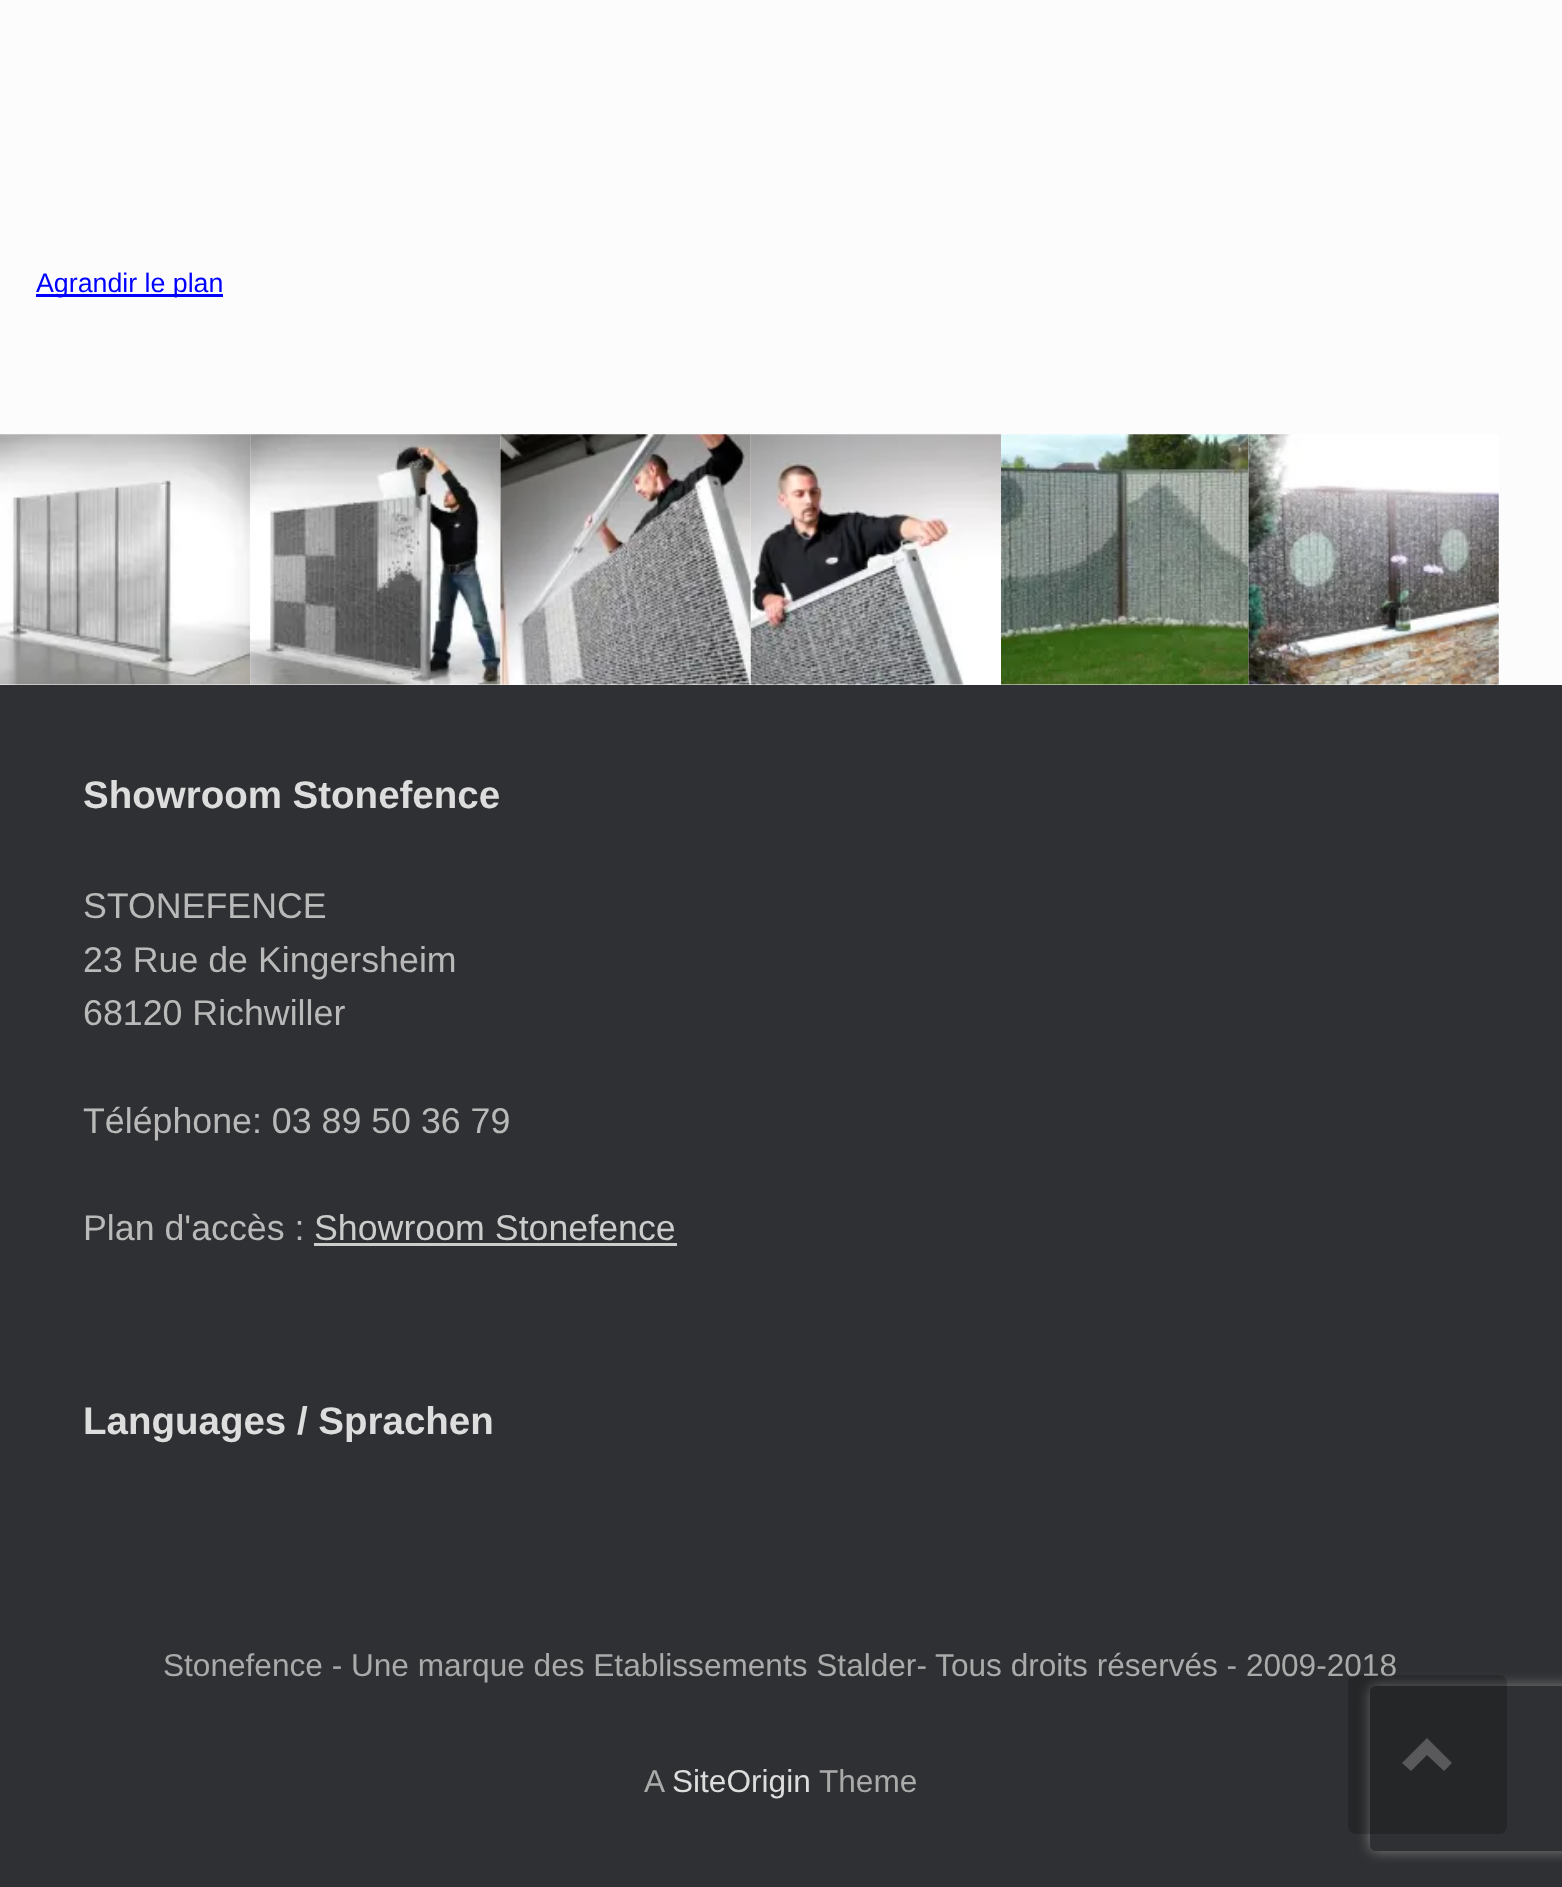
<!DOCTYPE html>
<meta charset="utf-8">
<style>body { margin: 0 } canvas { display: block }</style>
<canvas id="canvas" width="1562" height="1887"></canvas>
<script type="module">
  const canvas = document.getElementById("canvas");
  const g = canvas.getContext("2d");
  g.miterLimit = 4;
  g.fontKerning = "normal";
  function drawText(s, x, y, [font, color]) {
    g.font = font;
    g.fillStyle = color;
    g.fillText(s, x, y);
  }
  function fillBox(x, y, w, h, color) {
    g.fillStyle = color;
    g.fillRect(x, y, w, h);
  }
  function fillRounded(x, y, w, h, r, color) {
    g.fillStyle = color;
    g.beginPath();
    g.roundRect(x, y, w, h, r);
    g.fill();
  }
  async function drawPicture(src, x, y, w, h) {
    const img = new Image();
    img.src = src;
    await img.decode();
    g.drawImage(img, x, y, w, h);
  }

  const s1 = ["26.75px Liberation Sans", "#0000FF"];
  const s2 = ["bold 38.5px Liberation Sans", "#DDDDDD"];
  const s3 = ["35.75px Liberation Sans", "#B9B9B9"];
  const s4 = ["35.75px Liberation Sans", "#CCCCCC"];
  const s5 = ["31.6px Liberation Sans", "#AAAAAA"];
  const s6 = ["31.6px Liberation Sans", "#DDDDDD"];

  fillBox(0, 0, 1562, 1887, "#2F3033");
  fillBox(0, 0, 1562, 685, "#FCFCFC");
  fillBox(36, 294, 187, 3, "#0000FF");
  drawText("Agrandir le plan", 36, 292, s1);
  await drawPicture("pic1.png", 0, 434, 251, 251);
  await drawPicture("pic2.png", 250, 434, 251, 251);
  await drawPicture("pic3.png", 500, 434, 251, 251);
  await drawPicture("pic4.png", 750, 434, 251, 251);
  await drawPicture("pic5.png", 1001, 434, 248, 251);
  await drawPicture("pic6.png", 1248, 434, 251, 251);
  drawText("Showroom Stonefence", 83, 808, s2);
  drawText("STONEFENCE", 83, 918, s3);
  drawText("23 Rue de Kingersheim", 83, 972, s3);
  drawText("68120 Richwiller", 83, 1025, s3);
  drawText("Téléphone: 03 89 50 36 79", 83, 1133, s3);
  drawText("Plan d'accès :", 83, 1240, s3);
  drawText("Showroom Stonefence", 314, 1240, s4);
  fillBox(314, 1243, 363, 3, "#CCCCCC");
  drawText("Languages / Sprachen", 83, 1434, s2);
  drawText("Stonefence - Une marque des Etablissements Stalder- Tous droits réservés - 2009-2018", 163, 1676, s5);
  drawText("A", 644, 1792, s5);
  drawText("SiteOrigin", 672, 1792, s6);
  drawText("Theme", 819, 1792, s5);
  g.save();
  g.beginPath();
  g.moveTo(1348, 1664);
  g.lineTo(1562, 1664);
  g.lineTo(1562, 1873);
  g.lineTo(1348, 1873);
  g.closePath();
  g.moveTo(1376, 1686);
  g.lineTo(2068, 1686);
  g.bezierCurveTo(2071.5, 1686, 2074, 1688.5, 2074, 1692);
  g.lineTo(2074, 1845);
  g.bezierCurveTo(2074, 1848.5, 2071.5, 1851, 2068, 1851);
  g.lineTo(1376, 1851);
  g.bezierCurveTo(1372.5, 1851, 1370, 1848.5, 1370, 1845);
  g.lineTo(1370, 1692);
  g.bezierCurveTo(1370, 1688.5, 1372.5, 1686, 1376, 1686);
  g.closePath();
  g.clip("evenodd");
  g.fillStyle = "#808080";
  g.filter = "blur(7px)";
  g.beginPath();
  g.roundRect(1370, 1686, 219, 165, 6);
  g.fill();
  g.filter = "none";
  g.restore();
  fillRounded(1348, 1675, 159, 159, 8, "rgba(0, 0, 0, 0.2)");
  g.fillStyle = "#59595C";
  g.beginPath();
  g.moveTo(1452, 1763);
  g.lineTo(1427, 1738);
  g.lineTo(1402, 1763);
  g.lineTo(1411, 1771);
  g.lineTo(1427, 1755);
  g.lineTo(1444, 1771);
  g.closePath();
  g.fill();
</script>
